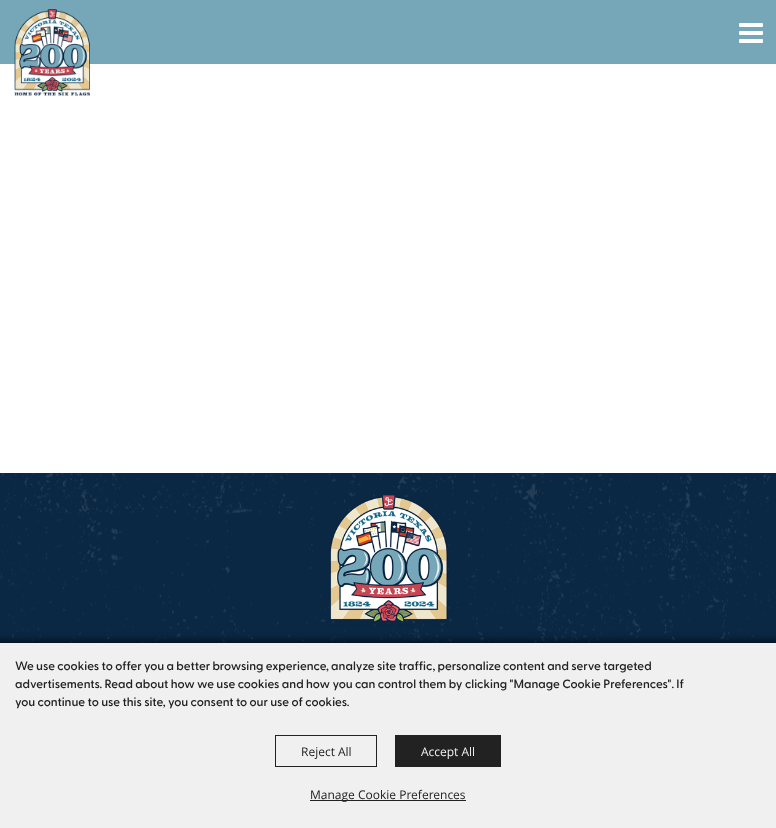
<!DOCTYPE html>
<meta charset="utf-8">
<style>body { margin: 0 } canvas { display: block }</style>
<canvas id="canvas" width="776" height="828"></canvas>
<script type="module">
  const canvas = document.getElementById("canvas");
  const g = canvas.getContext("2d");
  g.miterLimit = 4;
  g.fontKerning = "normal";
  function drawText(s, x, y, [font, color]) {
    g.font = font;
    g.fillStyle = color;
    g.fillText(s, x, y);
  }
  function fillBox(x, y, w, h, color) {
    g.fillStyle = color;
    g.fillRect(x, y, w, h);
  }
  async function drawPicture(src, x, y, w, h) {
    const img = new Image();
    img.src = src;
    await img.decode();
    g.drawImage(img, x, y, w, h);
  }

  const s1 = ["600 12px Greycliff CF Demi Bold", "#222222"];
  const s2 = ["12px Open Sans", "#222222"];
  const s3 = ["12px Open Sans", "#F0F0F0"];

  fillBox(0, 0, 776, 828, "#FFFFFF");
  fillBox(0, 0, 776, 64, "#75A7B8");
  await drawPicture("pic1.png", 14, 9, 76, 87);
  await drawPicture("pic2.png", 739, 23, 24, 20);
  await drawPicture("pic3.png", 0, 473, 776, 170);
  await drawPicture("pic4.png", 329, 495, 119, 132);
  g.fillStyle = "#000000";
  g.filter = "blur(5px)";
  g.beginPath();
  g.rect(-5, 643, 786, 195);
  g.fill();
  g.filter = "none";
  fillBox(0, 643, 776, 185, "#F0F0F0");
  drawText("We use cookies to offer you a better browsing experience, analyze site traffic, personalize content and serve targeted", 15, 670, s1);
  drawText("advertisements. Read about how we use cookies and how you can control them by clicking \"Manage Cookie Preferences\". If", 15, 688, s1);
  drawText("you continue to use this site, you consent to our use of cookies.", 15, 706, s1);
  g.strokeStyle = "#222222";
  g.strokeRect(275.5, 735.5, 101, 31);
  drawText("Reject All", 301, 756, s2);
  fillBox(395, 735, 106, 32, "#222222");
  drawText("Accept All", 421, 756, s3);
  fillBox(310, 800, 156, 1, "#222222");
  drawText("Manage Cookie Preferences", 310, 799, s2);
</script>
